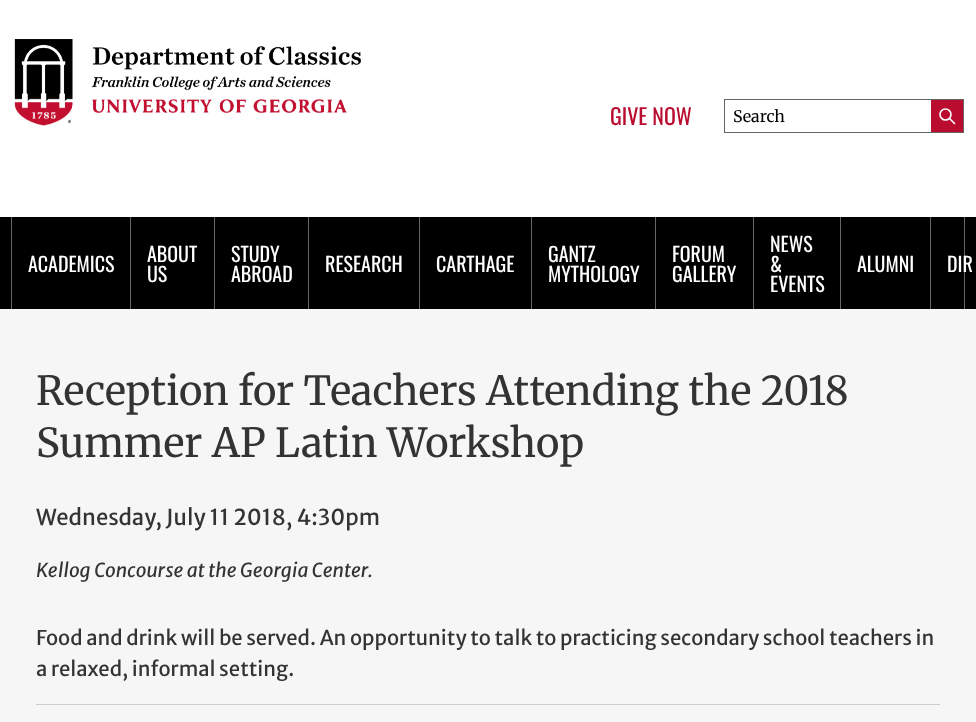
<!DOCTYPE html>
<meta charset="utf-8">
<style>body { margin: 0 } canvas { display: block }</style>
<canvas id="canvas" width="976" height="722"></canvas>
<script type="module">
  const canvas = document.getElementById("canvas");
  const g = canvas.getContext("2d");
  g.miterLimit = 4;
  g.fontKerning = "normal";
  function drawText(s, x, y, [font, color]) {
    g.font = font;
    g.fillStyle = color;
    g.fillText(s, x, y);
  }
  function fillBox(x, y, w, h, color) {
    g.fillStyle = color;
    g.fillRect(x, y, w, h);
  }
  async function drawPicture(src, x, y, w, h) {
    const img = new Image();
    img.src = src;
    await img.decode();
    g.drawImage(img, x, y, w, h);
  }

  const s1 = ["22px Oswald", "#BA0C2F"];
  const s2 = ["300 16px Merriweather", "#000000"];
  const s3 = ["20px Oswald", "#FFFFFF"];
  const s4 = ["300 40px Merriweather", "#333333"];
  const s5 = ["22px Merriweather Sans", "#333333"];
  const s6 = ["italic 19.25px Merriweather Sans", "#333333"];
  const s7 = ["20.25px Merriweather Sans", "#333333"];

  fillBox(0, 0, 976, 722, "#FFFFFF");
  await drawPicture("pic1.png", 14, 39, 347, 87);
  drawText("GIVE NOW", 610, 125, s1);
  g.strokeStyle = "#666666";
  g.strokeRect(724.5, 99.5, 239, 33);
  drawText("Search", 733, 122, s2);
  fillBox(931, 100, 32, 32, "#BA0C2F");
  g.beginPath();
  g.arc(945.5, 114.5, 5.5, 0, Math.PI * 2);
  g.strokeStyle = "#FFFFFF";
  g.lineWidth = 1.6;
  g.stroke();
  g.beginPath();
  g.moveTo(949.5, 118.5);
  g.lineTo(955, 124);
  g.stroke();
  fillBox(0, 217, 976, 92, "#000000");
  fillBox(11, 217, 1, 92, "#666666");
  fillBox(964, 217, 1, 92, "#666666");
  drawText("ACADEMICS", 28, 272, s3);
  fillBox(130, 217, 1, 92, "#666666");
  drawText("ABOUT", 147, 262, s3);
  drawText("US", 147, 282, s3);
  fillBox(214, 217, 1, 92, "#666666");
  drawText("STUDY", 231, 262, s3);
  drawText("ABROAD", 231, 282, s3);
  fillBox(308, 217, 1, 92, "#666666");
  drawText("RESEARCH", 325, 272, s3);
  fillBox(419, 217, 1, 92, "#666666");
  drawText("CARTHAGE", 436, 272, s3);
  fillBox(531, 217, 1, 92, "#666666");
  drawText("GANTZ", 548, 262, s3);
  drawText("MYTHOLOGY", 548, 282, s3);
  fillBox(655, 217, 1, 92, "#666666");
  drawText("FORUM", 672, 262, s3);
  drawText("GALLERY", 672, 282, s3);
  fillBox(753, 217, 1, 92, "#666666");
  drawText("NEWS", 770, 252, s3);
  drawText("&", 770, 272, s3);
  drawText("EVENTS", 770, 292, s3);
  fillBox(840, 217, 1, 92, "#666666");
  drawText("ALUMNI", 857, 272, s3);
  fillBox(930, 217, 1, 92, "#666666");
  drawText("DIR", 947, 272, s3);
  fillBox(0, 309, 976, 413, "#F6F6F6");
  drawText("Reception for Teachers Attending the 2018", 36, 405, s4);
  drawText("Summer AP Latin Workshop", 36, 457, s4);
  drawText("Wednesday, July 11 2018, 4:30pm", 36, 525, s5);
  drawText("Kellog Concourse at the Georgia Center.", 36, 577, s6);
  drawText("Food and drink will be served. An opportunity to talk to practicing secondary school teachers in", 36, 645, s7);
  drawText("a relaxed, informal setting.", 36, 676, s7);
  fillBox(36, 704, 904, 1, "#CCCCCC");
</script>
